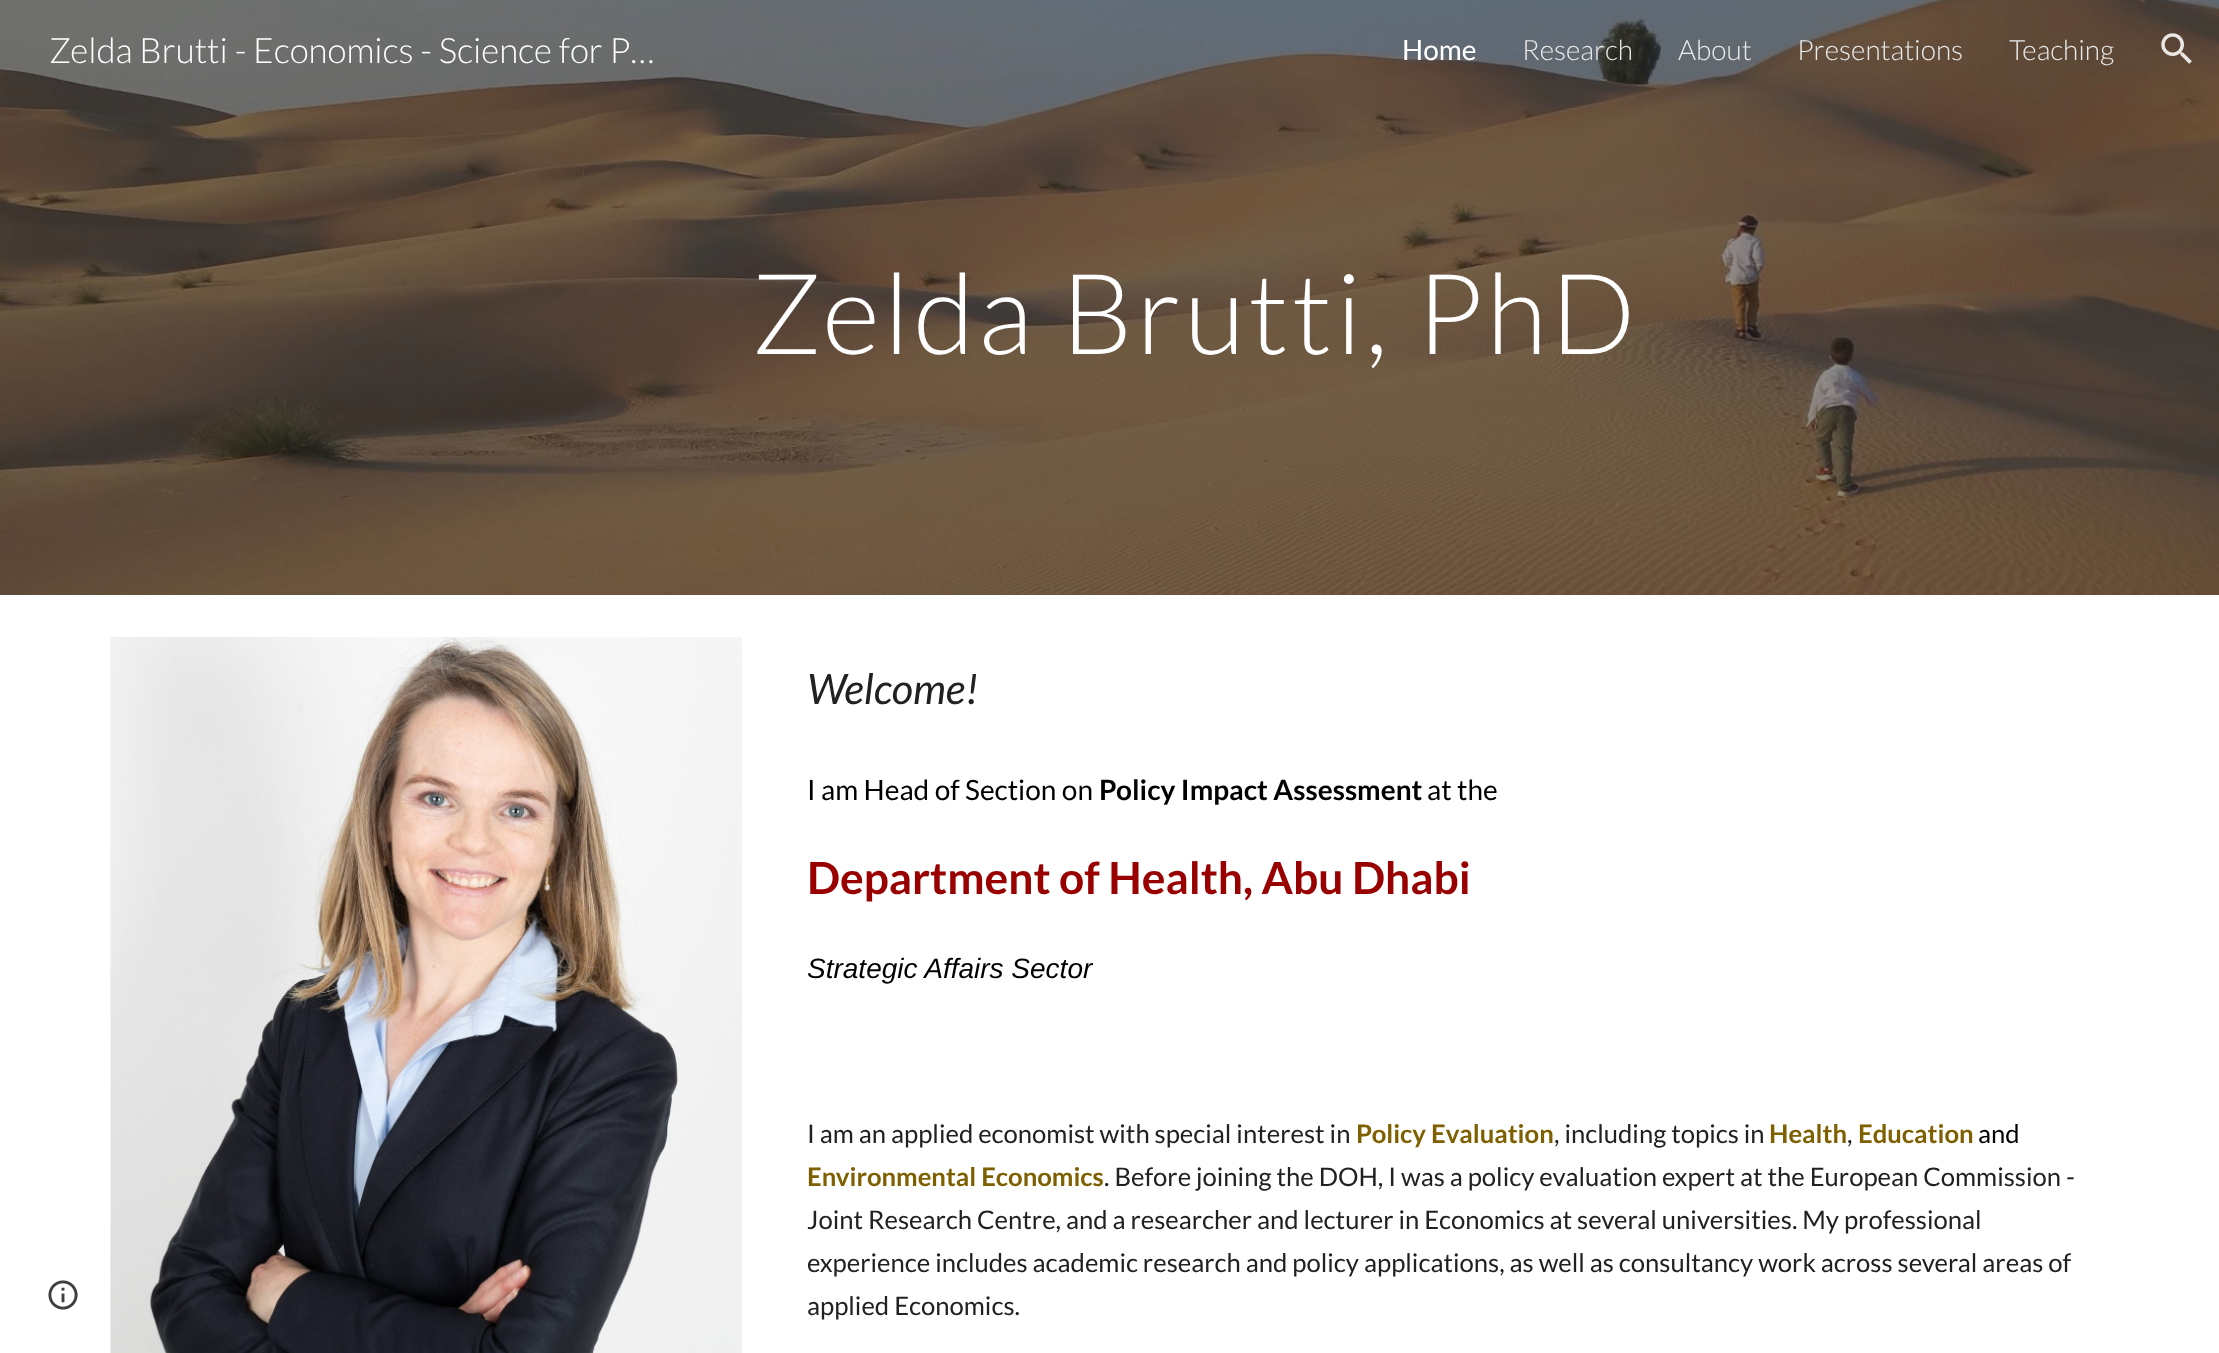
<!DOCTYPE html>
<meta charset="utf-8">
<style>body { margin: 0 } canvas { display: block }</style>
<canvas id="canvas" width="2219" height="1353"></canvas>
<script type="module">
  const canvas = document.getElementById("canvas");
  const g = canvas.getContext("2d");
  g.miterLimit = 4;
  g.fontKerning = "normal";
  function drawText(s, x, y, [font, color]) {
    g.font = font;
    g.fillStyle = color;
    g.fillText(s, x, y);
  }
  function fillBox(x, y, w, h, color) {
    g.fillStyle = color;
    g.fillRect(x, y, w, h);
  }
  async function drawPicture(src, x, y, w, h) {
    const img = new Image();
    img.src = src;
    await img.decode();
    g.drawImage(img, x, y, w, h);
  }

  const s1 = ["300 35px Lato", "#FFFFFF"];
  const s2 = ["28px Lato", "#FFFFFF"];
  const s3 = ["300 28px Lato", "#E9EAEA"];
  const s4 = ["300 112px Lato", "#FFFFFF"];
  const s5 = ["italic 42px Lato", "#212121"];
  const s6 = ["28px Lato", "#000000"];
  const s7 = ["bold 28px Lato", "#000000"];
  const s8 = ["bold 44.3px Lato", "#990000"];
  const s9 = ["italic 28px Liberation Sans", "#000000"];
  const s10 = ["25.65px Lato", "#212121"];
  const s11 = ["bold 25.65px Lato", "#7F6000"];
  const s12 = ["25.65px Lato", "#000000"];

  fillBox(0, 0, 2219, 1353, "#FFFFFF");
  await drawPicture("pic3.png", 0, 0, 2219, 595);
  drawText("Zelda Brutti - Economics - Science for P…", 49, 63, s1);
  drawText("Home", 1402, 60, s2);
  drawText("Research", 1522, 60, s3);
  drawText("About", 1678, 60, s3);
  drawText("Presentations", 1797, 60, s3);
  drawText("Teaching", 2009, 60, s3);
  await drawPicture("pic1.png", 2161, 33, 31, 31);
  await drawPicture("pic2.png", 48, 1280, 30, 30);
  g.letterSpacing = "3.5px";
  drawText("Zelda Brutti, PhD", 751, 354, s4);
  await drawPicture("pic4.png", 110, 637, 632, 716);
  g.letterSpacing = "0px";
  drawText("Welcome!", 807, 704, s5);
  drawText("I am Head of Section on", 807, 800, s6);
  drawText("Policy Impact Assessment", 1099, 800, s7);
  drawText("at the", 1427, 800, s6);
  drawText("Department of Health, Abu Dhabi", 807, 894, s8);
  drawText("Strategic Affairs Sector", 807, 978, s9);
  drawText("I am an applied economist with special interest in", 807, 1143, s10);
  drawText("Policy Evaluation", 1356, 1143, s11);
  drawText(", including topics in", 1554, 1143, s10);
  drawText("Health", 1769, 1143, s11);
  drawText(",", 1847, 1143, s10);
  drawText("Education", 1858, 1143, s11);
  drawText("and", 1978, 1143, s12);
  drawText("Environmental Economics", 807, 1186, s11);
  drawText(". Before joining the DOH, I was a policy evaluation expert at the European Commission -", 1104, 1186, s10);
  drawText("Joint Research Centre, and a researcher and lecturer in Economics at several universities. My professional", 807, 1229, s10);
  drawText("experience includes academic research and policy", 807, 1272, s10);
  drawText("applications, as well as consultancy work across several areas of", 1364, 1272, s10);
  drawText("applied Economics.", 807, 1315, s10);
</script>
